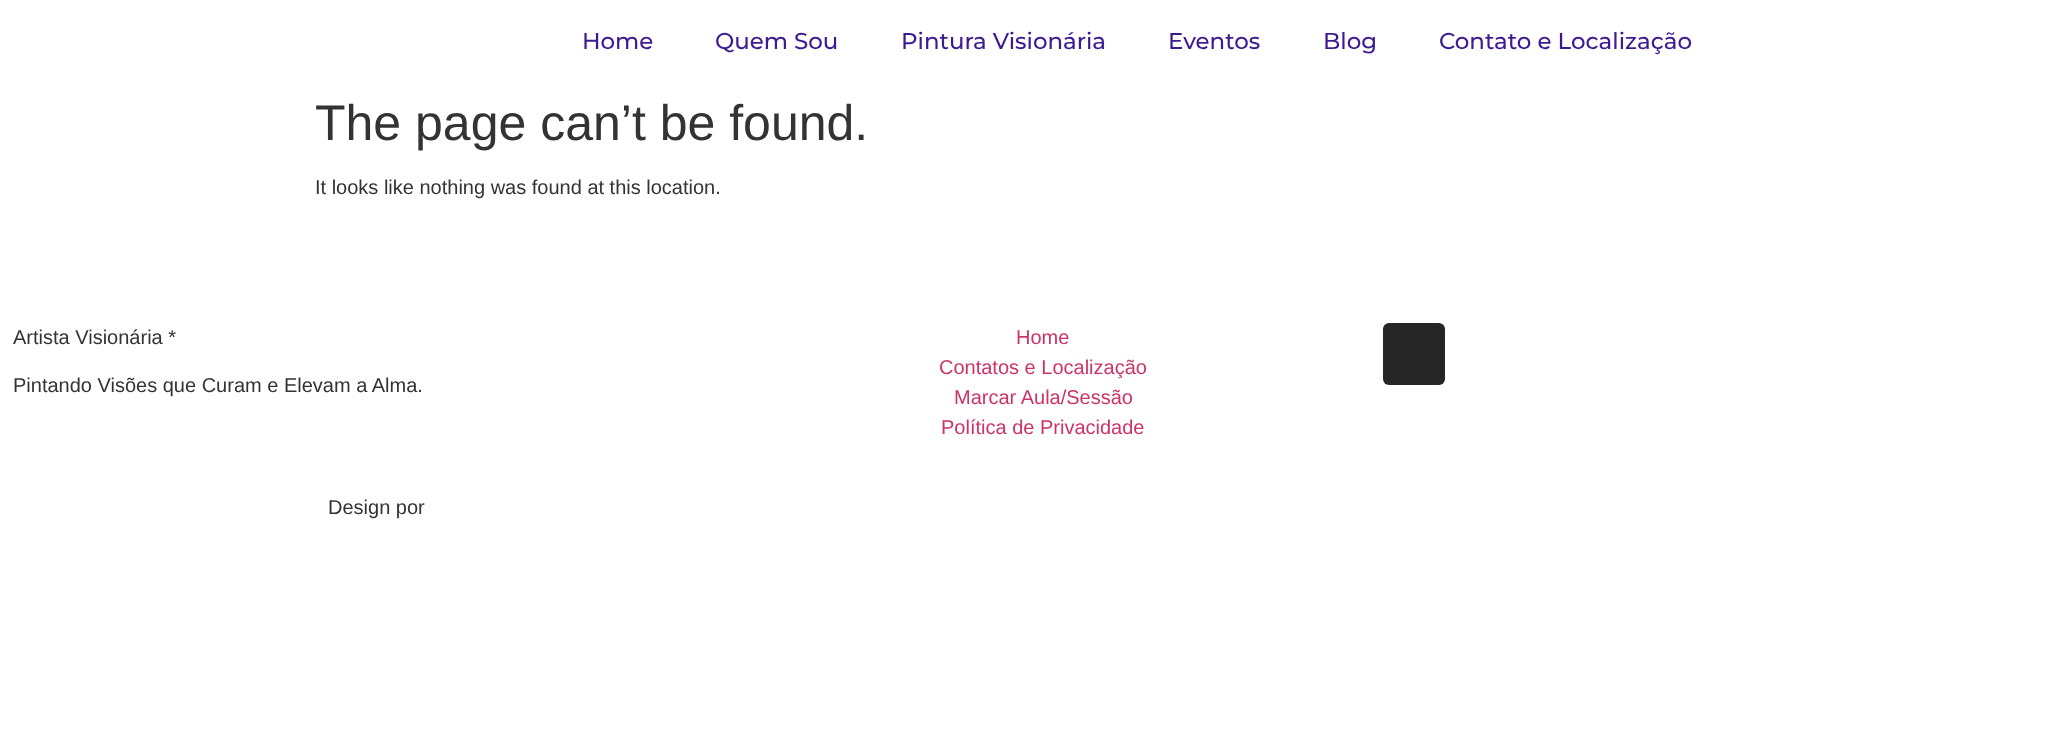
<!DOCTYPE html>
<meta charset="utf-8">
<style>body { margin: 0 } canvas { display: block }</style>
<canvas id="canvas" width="2054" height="739"></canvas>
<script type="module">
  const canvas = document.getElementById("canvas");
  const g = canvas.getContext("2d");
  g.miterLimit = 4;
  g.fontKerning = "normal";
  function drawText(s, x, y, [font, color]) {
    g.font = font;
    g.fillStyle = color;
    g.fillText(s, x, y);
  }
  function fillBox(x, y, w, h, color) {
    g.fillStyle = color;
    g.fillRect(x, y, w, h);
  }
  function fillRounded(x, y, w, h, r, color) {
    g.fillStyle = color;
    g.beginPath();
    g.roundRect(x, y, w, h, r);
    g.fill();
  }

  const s1 = ["500 22.9px Montserrat", "#3D1A92"];
  const s2 = ["50px Liberation Sans", "#333333"];
  const s3 = ["20px Liberation Sans", "#333333"];
  const s4 = ["20px Liberation Sans", "#CC3366"];

  fillBox(0, 0, 2054, 739, "#FFFFFF");
  drawText("Home", 582, 49, s1);
  drawText("Quem Sou", 715, 49, s1);
  drawText("Pintura Visionária", 901, 49, s1);
  drawText("Eventos", 1168, 49, s1);
  drawText("Blog", 1323, 49, s1);
  drawText("Contato e Localização", 1439, 49, s1);
  drawText("The page can’t be found.", 315, 140, s2);
  drawText("It looks like nothing was found at this location.", 315, 194, s3);
  drawText("Artista Visionária *", 13, 344, s3);
  drawText("Pintando Visões que Curam e Elevam a Alma.", 13, 392, s3);
  drawText("Home", 1016, 344, s4);
  drawText("Contatos e Localização", 939, 374, s4);
  drawText("Marcar Aula/Sessão", 954, 404, s4);
  drawText("Política de Privacidade", 941, 434, s4);
  fillRounded(1383, 323, 62, 62, 6, "#262626");
  drawText("Design por", 328, 514, s3);
</script>
